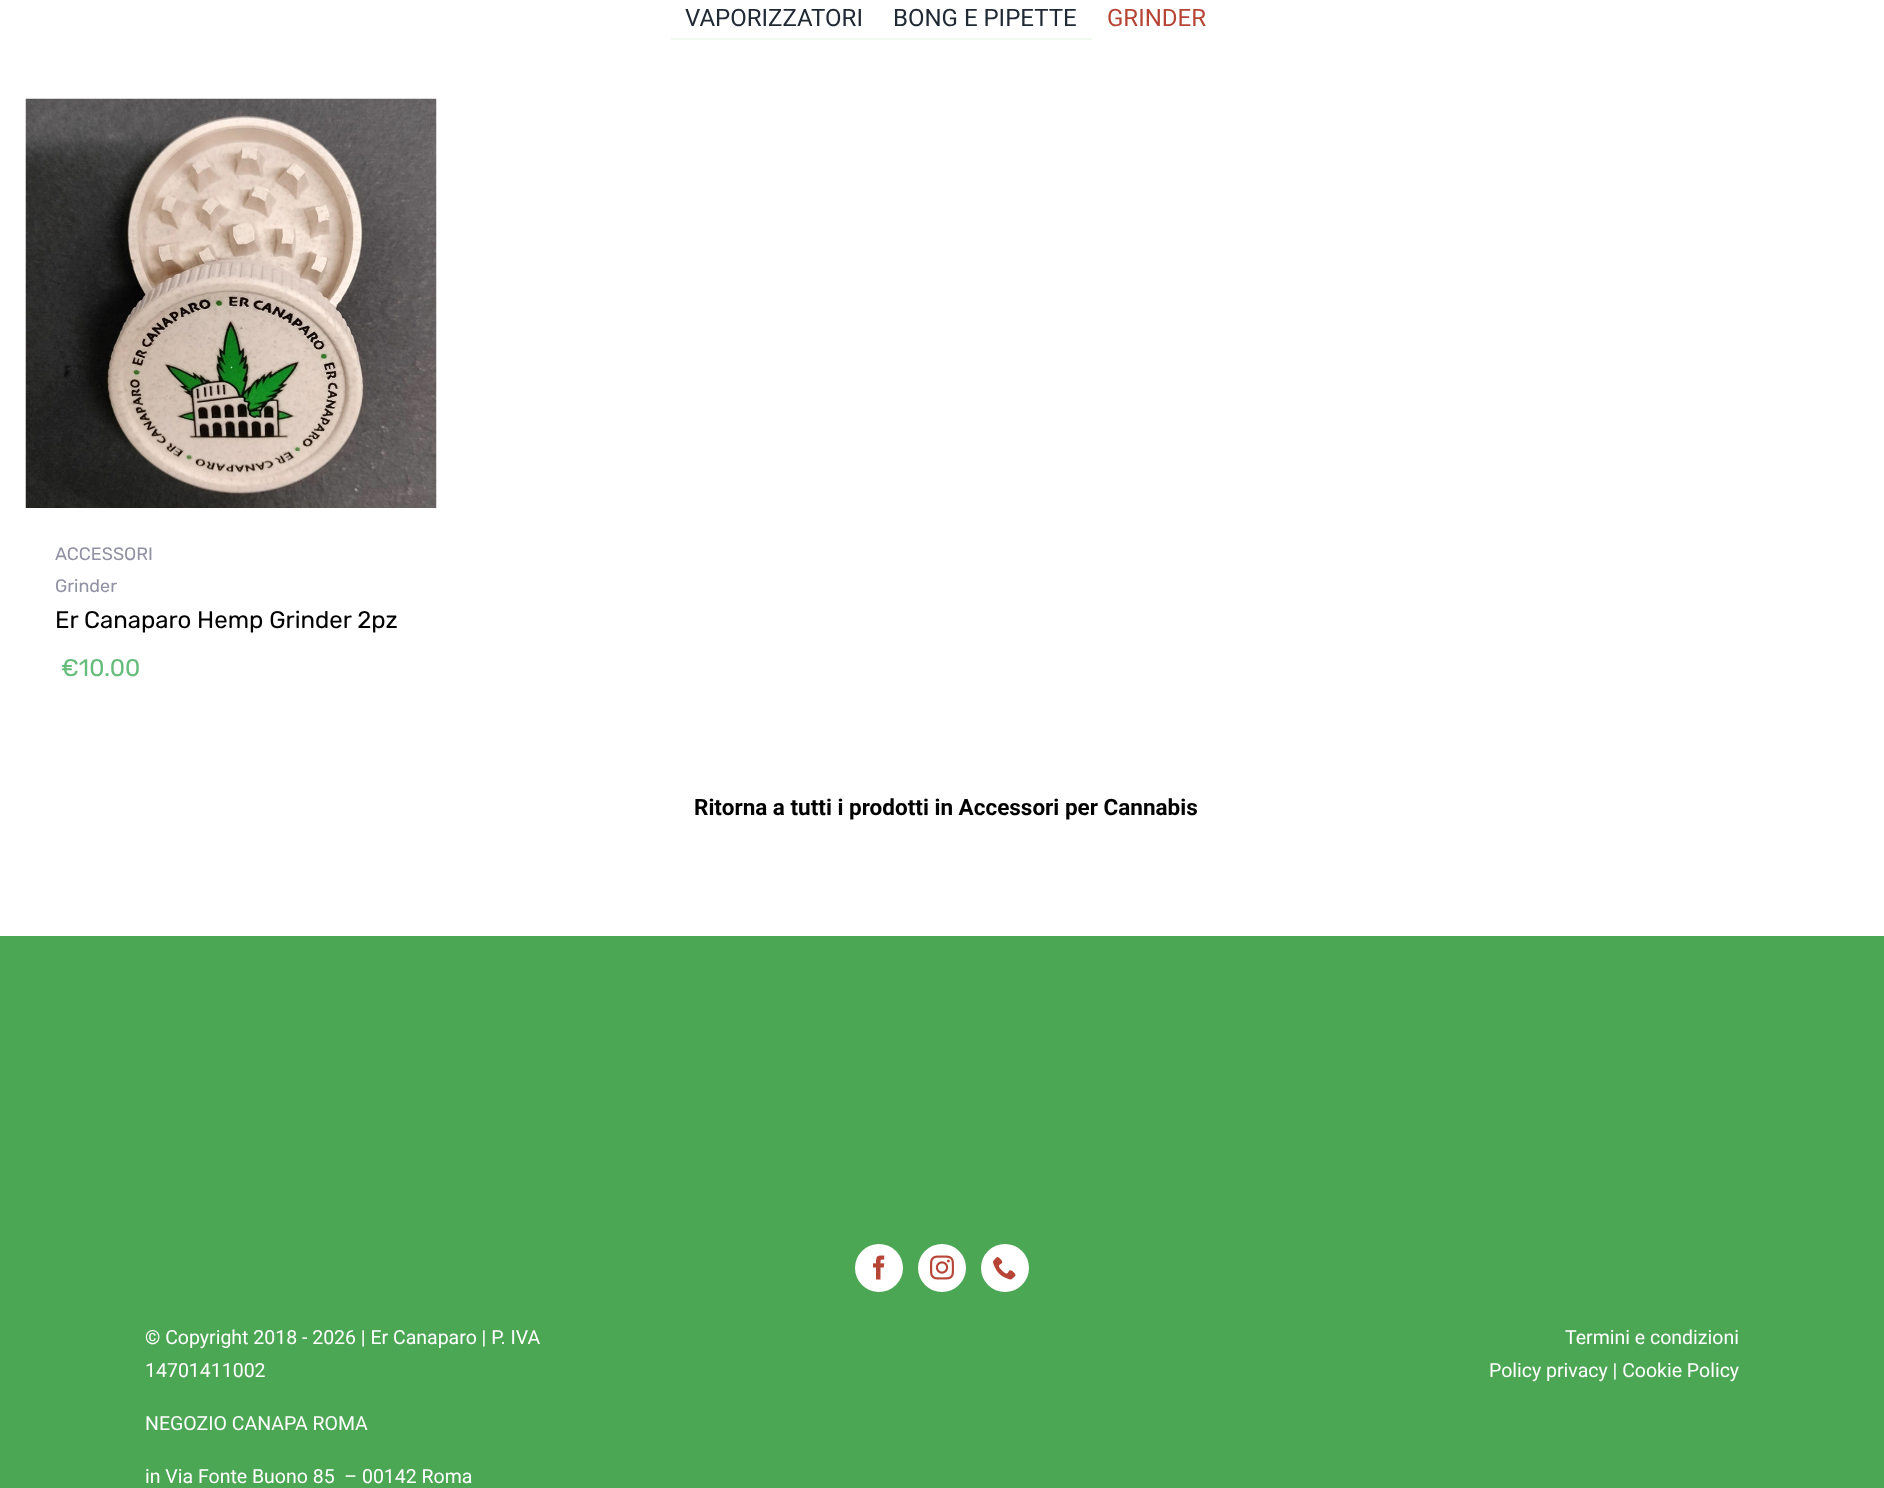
<!DOCTYPE html>
<meta charset="utf-8">
<style>body { margin: 0 } canvas { display: block }</style>
<canvas id="canvas" width="1884" height="1488"></canvas>
<script type="module">
  const canvas = document.getElementById("canvas");
  const g = canvas.getContext("2d");
  g.miterLimit = 4;
  g.fontKerning = "normal";
  function drawText(s, x, y, [font, color]) {
    g.font = font;
    g.fillStyle = color;
    g.fillText(s, x, y);
  }
  function fillBox(x, y, w, h, color) {
    g.fillStyle = color;
    g.fillRect(x, y, w, h);
  }
  async function drawPicture(src, x, y, w, h) {
    const img = new Image();
    img.src = src;
    await img.decode();
    g.drawImage(img, x, y, w, h);
  }

  const s1 = ["24px Roboto", "#212934"];
  const s2 = ["24px Roboto", "#B74536"];
  const s3 = ["300 18px Rubik", "#9192A3"];
  const s4 = ["300 24px Rubik", "#000000"];
  const s5 = ["300 24px Rubik", "#65BC7B"];
  const s6 = ["bold 22.5px Roboto", "#000000"];
  const s7 = ["19.5px Roboto", "#FFFFFF"];

  fillBox(0, 0, 1884, 1488, "#FFFFFF");
  drawText("VAPORIZZATORI", 685, 26, s1);
  fillBox(671, 38, 421, 2, "#F2F9F1");
  drawText("BONG E PIPETTE", 893, 26, s1);
  drawText("GRINDER", 1107, 26, s2);
  await drawPicture("pic1.png", 25, 98, 412, 410);
  drawText("ACCESSORI", 55, 560, s3);
  drawText("Grinder", 55, 592, s3);
  drawText("Er Canaparo Hemp Grinder 2pz", 55, 628, s4);
  drawText("€10.00", 61, 676, s5);
  drawText("Ritorna a tutti i prodotti in Accessori per Cannabis", 694, 815, s6);
  fillBox(0, 936, 1884, 552, "#4CA754");
  g.fillStyle = "#FFFFFF";
  g.beginPath();
  g.arc(879, 1268, 24, 0, Math.PI * 2);
  g.fill();
  await drawPicture("pic2.png", 873, 1255, 12, 25);
  g.beginPath();
  g.arc(942, 1268, 24, 0, Math.PI * 2);
  g.fill();
  await drawPicture("pic3.png", 930, 1255, 24, 25);
  g.beginPath();
  g.arc(1005, 1268, 24, 0, Math.PI * 2);
  g.fill();
  await drawPicture("pic4.png", 993, 1257, 23, 23);
  drawText("© Copyright 2018 - 2026 | Er Canaparo | P. IVA", 145, 1344, s7);
  drawText("14701411002", 145, 1377, s7);
  drawText("NEGOZIO CANAPA ROMA", 145, 1430, s7);
  drawText("in Via Fonte Buono 85  – 00142 Roma", 145, 1483, s7);
  drawText("Termini e condizioni", 1565, 1344, s7);
  drawText("Policy privacy | Cookie Policy", 1489, 1377, s7);
</script>
